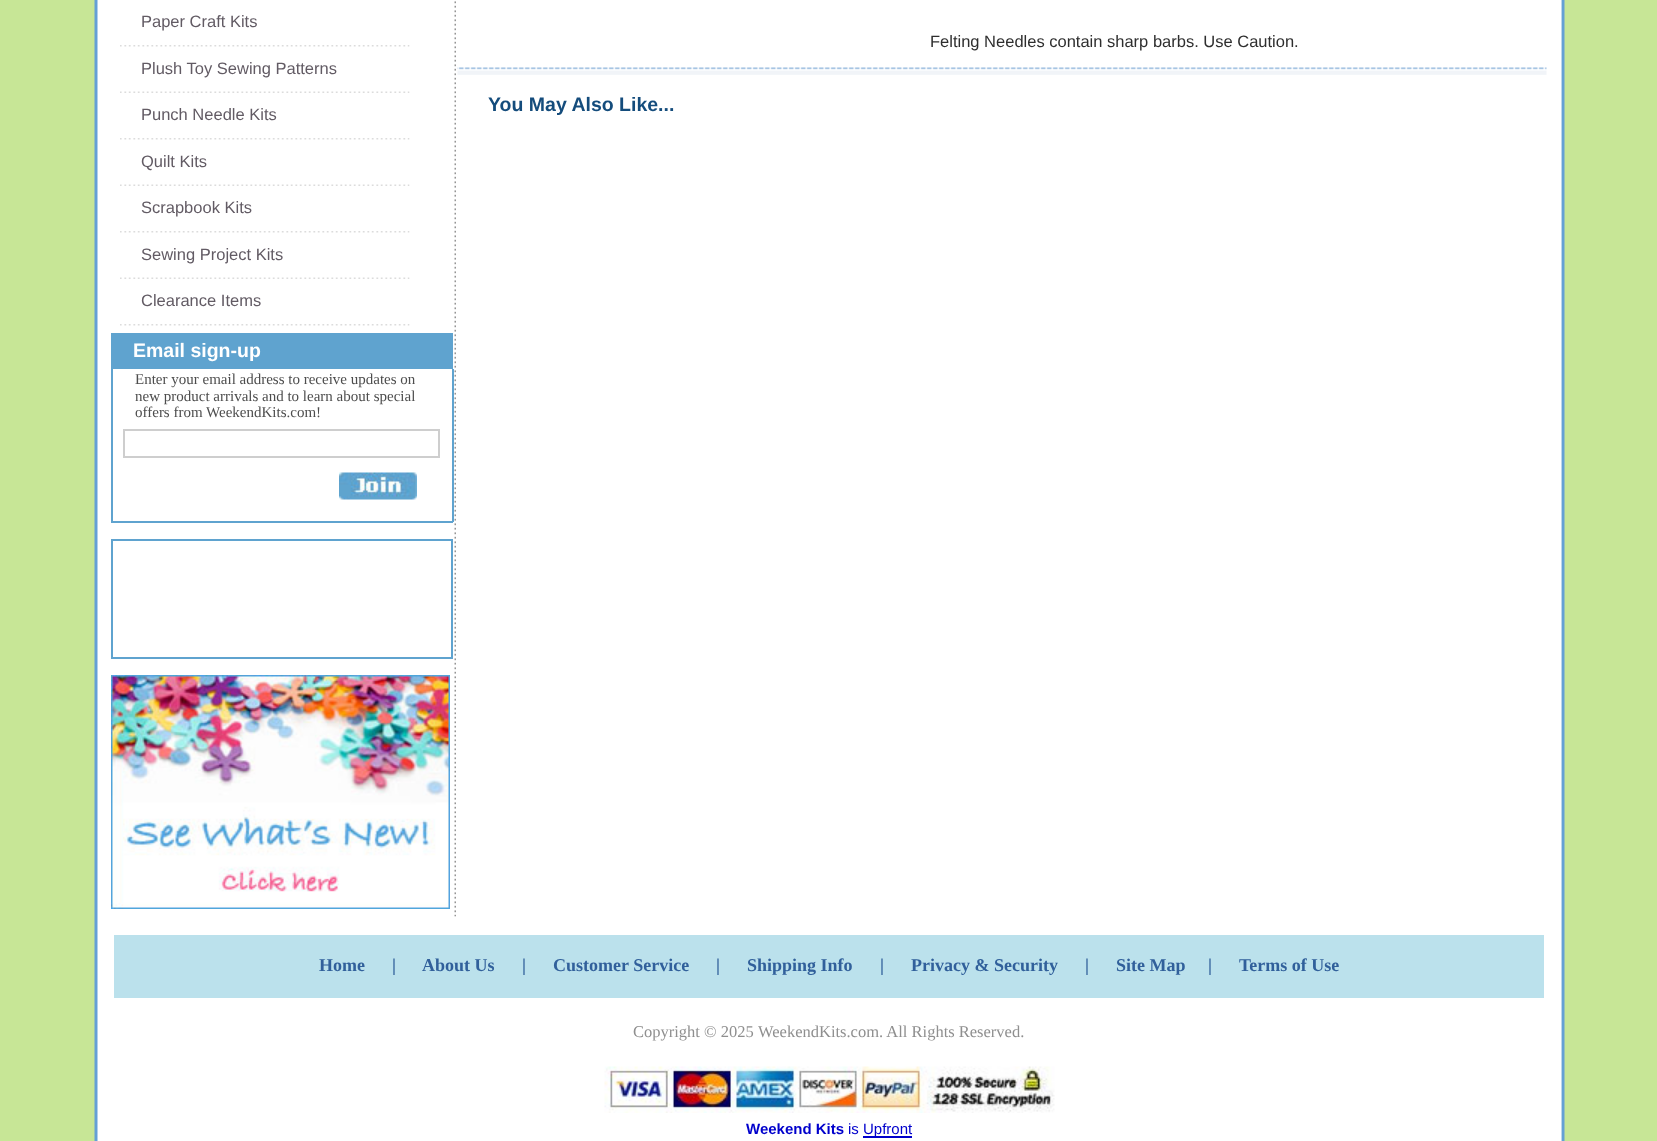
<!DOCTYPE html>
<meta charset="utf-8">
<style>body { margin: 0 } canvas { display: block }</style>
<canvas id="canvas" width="1657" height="1141"></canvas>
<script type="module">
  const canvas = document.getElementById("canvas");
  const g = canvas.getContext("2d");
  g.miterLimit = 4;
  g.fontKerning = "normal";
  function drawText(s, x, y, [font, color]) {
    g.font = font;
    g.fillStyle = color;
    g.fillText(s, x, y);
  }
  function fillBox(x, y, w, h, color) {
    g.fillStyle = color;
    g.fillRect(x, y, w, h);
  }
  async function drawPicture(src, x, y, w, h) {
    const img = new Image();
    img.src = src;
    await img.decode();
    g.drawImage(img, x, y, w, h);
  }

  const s1 = ["16.5px Liberation Sans", "#625B64"];
  const s2 = ["bold 19.5px Liberation Sans", "#FFFFFF"];
  const s3 = ["15px Liberation Serif", "#4D4D4D"];
  const s4 = ["16.5px Liberation Sans", "#2E2E2E"];
  const s5 = ["bold 19.5px Liberation Sans", "#144C7C"];
  const s6 = ["bold 18px Liberation Serif", "#31609B"];
  const s7 = ["16.5px Liberation Serif", "#8F8F8F"];
  const s8 = ["bold 15px Liberation Sans", "#0000CC"];
  const s9 = ["15px Liberation Sans", "#0000CC"];

  fillBox(0, 0, 1657, 1141, "#C7E696");
  await drawPicture("pic1.png", 94, 0, 1471, 1141);
  await drawPicture("pic2.png", 120, 45, 290, 2);
  drawText("Paper Craft Kits", 141, 27, s1);
  await drawPicture("pic3.png", 120, 91, 290, 2);
  drawText("Plush Toy Sewing Patterns", 141, 74, s1);
  await drawPicture("pic2.png", 120, 138, 290, 2);
  drawText("Punch Needle Kits", 141, 120, s1);
  await drawPicture("pic3.png", 120, 184, 290, 2);
  drawText("Quilt Kits", 141, 167, s1);
  await drawPicture("pic2.png", 120, 231, 290, 2);
  drawText("Scrapbook Kits", 141, 213, s1);
  await drawPicture("pic3.png", 120, 277, 290, 2);
  drawText("Sewing Project Kits", 141, 260, s1);
  await drawPicture("pic2.png", 120, 324, 290, 2);
  drawText("Clearance Items", 141, 306, s1);
  fillBox(111, 333, 342, 36, "#5FA3CF");
  drawText("Email sign-up", 133, 357, s2);
  fillBox(452, 369, 2, 153, "#5FA3CF");
  fillBox(111, 369, 2, 134, "#5FA3CF");
  drawText("Enter your email address to receive updates on", 135, 384, s3);
  drawText("new product arrivals and to learn about special", 135, 401, s3);
  drawText("offers from WeekendKits.com!", 135, 417, s3);
  g.strokeStyle = "#CECECE";
  g.lineWidth = 2;
  g.strokeRect(124, 430, 315, 27);
  await drawPicture("pic4.png", 339, 472, 78, 28);
  fillBox(111, 521, 342, 2, "#5FA3CF");
  fillBox(111, 503, 2, 19, "#5FA3CF");
  g.strokeStyle = "#5FA3CF";
  g.strokeRect(112, 540, 340, 118);
  await drawPicture("pic5.png", 111, 675, 339, 234);
  await drawPicture("pic6.png", 454, 1, 2, 916);
  drawText("Felting Needles contain sharp barbs. Use Caution.", 930, 47, s4);
  await drawPicture("pic7.png", 457, 67, 1090, 8);
  drawText("You May Also Like...", 488, 111, s5);
  fillBox(114, 935, 1430, 63, "#BBE1EC");
  drawText("Home", 319, 971, s6);
  drawText("|", 392, 971, s6);
  drawText("About Us", 422, 971, s6);
  drawText("|", 522, 971, s6);
  drawText("Customer Service", 553, 971, s6);
  drawText("|", 716, 971, s6);
  drawText("Shipping Info", 747, 971, s6);
  drawText("|", 880, 971, s6);
  drawText("Privacy & Security", 911, 971, s6);
  drawText("|", 1085, 971, s6);
  drawText("Site Map", 1116, 971, s6);
  drawText("|", 1208, 971, s6);
  drawText("Terms of Use", 1239, 971, s6);
  drawText("Copyright © 2025", 633, 1037, s7);
  drawText("WeekendKits.com. All Rights Reserved.", 758, 1037, s7);
  await drawPicture("pic8.png", 604, 1066, 451, 47);
  drawText("Weekend Kits", 746, 1134, s8);
  drawText("is", 848, 1134, s9);
  fillBox(863, 1136, 49, 2, "#0000CC");
  drawText("Upfront", 863, 1134, s9);
</script>
